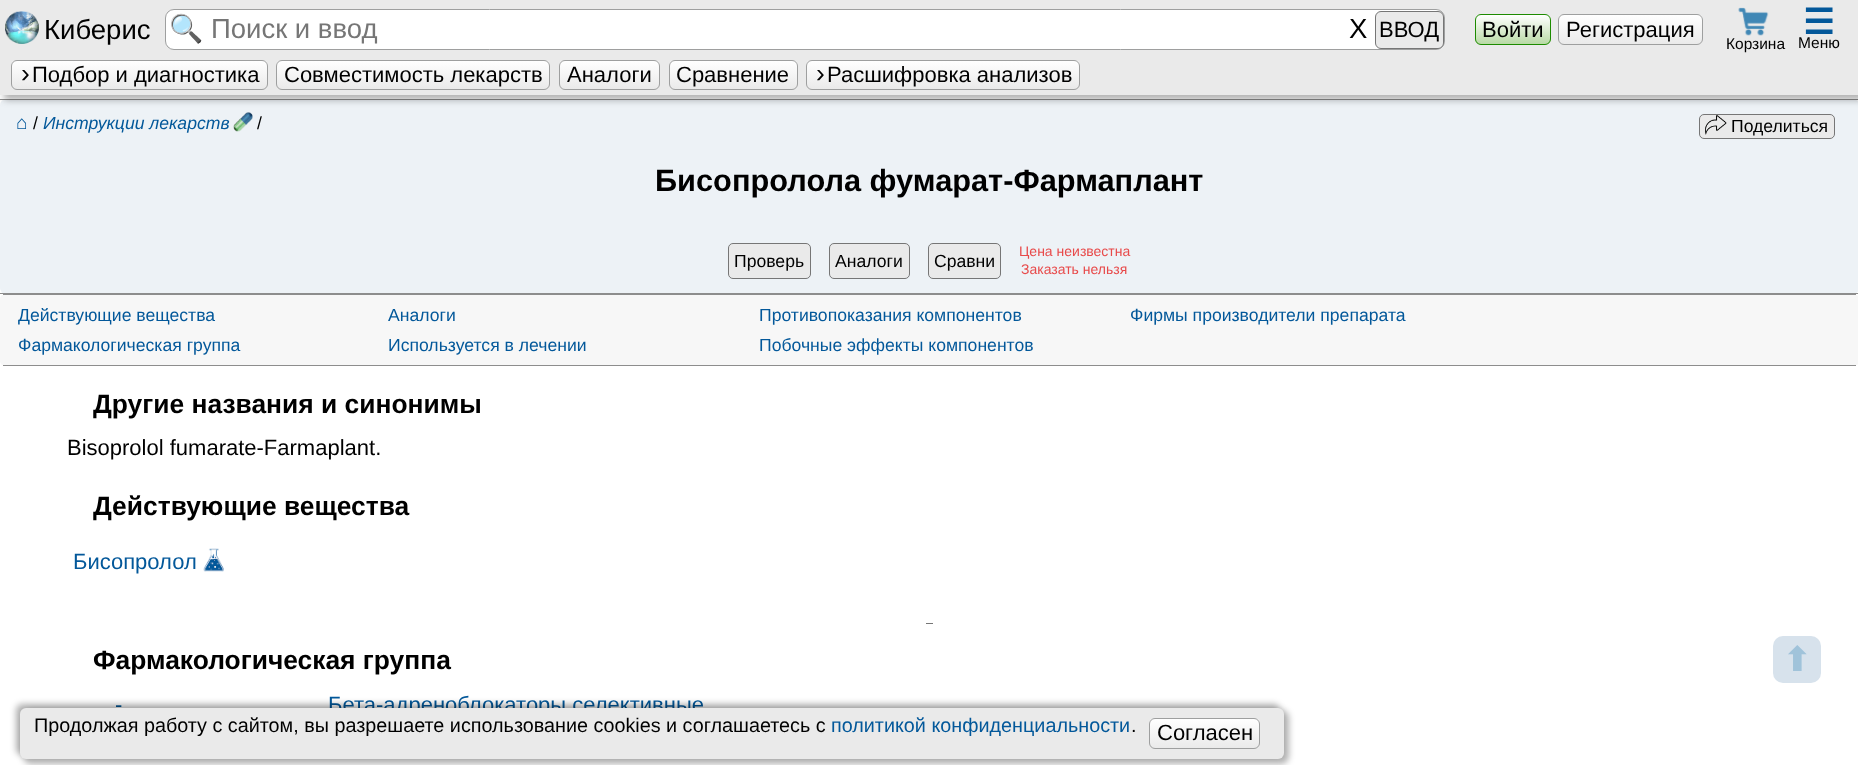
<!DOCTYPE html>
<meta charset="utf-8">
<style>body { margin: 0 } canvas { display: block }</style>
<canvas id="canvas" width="1858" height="765"></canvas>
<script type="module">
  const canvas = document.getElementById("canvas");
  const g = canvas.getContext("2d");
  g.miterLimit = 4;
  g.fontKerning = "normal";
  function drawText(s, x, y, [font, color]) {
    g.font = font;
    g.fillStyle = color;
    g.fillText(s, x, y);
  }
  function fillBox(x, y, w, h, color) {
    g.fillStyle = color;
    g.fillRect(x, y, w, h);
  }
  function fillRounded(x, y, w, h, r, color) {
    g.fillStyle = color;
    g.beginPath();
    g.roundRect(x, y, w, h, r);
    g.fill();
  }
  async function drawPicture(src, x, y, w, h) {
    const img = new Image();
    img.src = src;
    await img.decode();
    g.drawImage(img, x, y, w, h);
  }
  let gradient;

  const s1 = ["27.5px Liberation Sans", "#000000"];
  const s2 = ["27.5px Noto Color Emoji", "#767676"];
  const s3 = ["27.5px Liberation Sans", "#767676"];
  const s4 = ["22px Liberation Sans", "#000000"];
  const s5 = ["bold 35px DejaVu Sans", "#03589A"];
  const s6 = ["15.5px Liberation Sans", "#000000"];
  const s7 = ["26.4px Liberation Sans", "#000000"];
  const s8 = ["19px Liberation Sans", "#03589A"];
  const s9 = ["17.6px Liberation Sans", "#000000"];
  const s10 = ["italic 17.6px Liberation Sans", "#03589A"];
  const s11 = ["bold 30.75px Liberation Sans", "#000000"];
  const s12 = ["14px Liberation Sans", "#E84A4A"];
  const s13 = ["17.6px Liberation Sans", "#03589A"];
  const s14 = ["bold 26.4px Liberation Sans", "#000000"];
  const s15 = ["22px Liberation Sans", "#03589A"];
  const s16 = ["bold 33px DejaVu Sans", "#A0C3DA"];
  const s17 = ["19.8px Liberation Sans", "#000000"];
  const s18 = ["19.8px Liberation Sans", "#03589A"];

  fillBox(0, 0, 1858, 765, "#FFFFFF");
  fillRounded(0, 99, 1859, 195, 6, "#EDF2F6");
  fillBox(0, 99, 1858, 1, "#8D8D8D");
  g.fillStyle = "rgba(0, 0, 0, 0.3)";
  g.filter = "blur(3.5px)";
  g.beginPath();
  g.rect(4, 4, 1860, 96);
  g.fill();
  g.filter = "none";
  fillBox(0, 0, 1858, 95, "#EAEAEA");
  await drawPicture("pic1.png", 5, 11, 34, 33);
  drawText("Киберис", 44, 39, s1);
  g.fillStyle = "#FFFFFF";
  g.beginPath();
  g.roundRect(165.5, 9.5, 1279, 40, 8.5);
  g.fill();
  g.strokeStyle = "#9E9F9F";
  g.stroke();
  drawText("🔍", 169, 38, s2);
  drawText("Поиск и ввод", 211, 38, s3);
  drawText("X", 1349, 38, s1);
  g.fillStyle = "#EAEAEA";
  g.beginPath();
  g.roundRect(1375.5, 11.5, 68, 37, 5.5);
  g.fill();
  g.strokeStyle = "#767676";
  g.stroke();
  drawText("ВВОД", 1379, 37, s4);
  g.save();
  g.beginPath();
  g.roundRect(1475, 14, 76, 31, 6);
  g.clip();
  gradient = g.createLinearGradient(1513, 44, 1513, 15);
  gradient.addColorStop(0, "#B9DAA6");
  gradient.addColorStop(1, "#FFFFFF");
  g.fillStyle = gradient;
  g.fillRect(1475, 15, 76, 29);
  g.restore();
  g.beginPath();
  g.roundRect(1475.5, 14.5, 75, 30, 5.5);
  g.strokeStyle = "#1D8B00";
  g.stroke();
  drawText("Войти", 1482, 37, s4);
  g.save();
  g.beginPath();
  g.roundRect(1558, 14, 145, 31, 6);
  g.clip();
  gradient = g.createLinearGradient(1630, 44, 1630, 15);
  gradient.addColorStop(0, "#EAEAEA");
  gradient.addColorStop(1, "#FFFFFF");
  g.fillStyle = gradient;
  g.fillRect(1558, 15, 145, 29);
  g.restore();
  g.beginPath();
  g.roundRect(1558.5, 14.5, 144, 30, 5.5);
  g.strokeStyle = "#9E9F9F";
  g.stroke();
  drawText("Регистрация", 1566, 37, s4);
  drawText("☰", 1803, 34, s5);
  drawText("Меню", 1798, 48, s6);
  await drawPicture("pic2.png", 1738, 7, 31, 29);
  drawText("Корзина", 1726, 49, s6);
  g.save();
  g.beginPath();
  g.roundRect(11, 60, 257, 30, 6);
  g.clip();
  gradient = g.createLinearGradient(139, 89, 139, 61);
  gradient.addColorStop(0, "#EAEAEA");
  gradient.addColorStop(1, "#FFFFFF");
  g.fillStyle = gradient;
  g.fillRect(11, 61, 257, 28);
  g.restore();
  g.beginPath();
  g.roundRect(11.5, 60.5, 256, 29, 5.5);
  g.stroke();
  drawText("›", 21, 82, s7);
  drawText("Подбор и диагностика", 32, 82, s4);
  g.save();
  g.beginPath();
  g.roundRect(276, 60, 274, 30, 6);
  g.clip();
  gradient = g.createLinearGradient(413, 89, 413, 61);
  gradient.addColorStop(0, "#EAEAEA");
  gradient.addColorStop(1, "#FFFFFF");
  g.fillStyle = gradient;
  g.fillRect(276, 61, 274, 28);
  g.restore();
  g.beginPath();
  g.roundRect(276.5, 60.5, 273, 29, 5.5);
  g.stroke();
  drawText("Совместимость лекарств", 284, 82, s4);
  g.save();
  g.beginPath();
  g.roundRect(559, 60, 101, 30, 6);
  g.clip();
  gradient = g.createLinearGradient(609, 89, 609, 61);
  gradient.addColorStop(0, "#EAEAEA");
  gradient.addColorStop(1, "#FFFFFF");
  g.fillStyle = gradient;
  g.fillRect(559, 61, 101, 28);
  g.restore();
  g.beginPath();
  g.roundRect(559.5, 60.5, 100, 29, 5.5);
  g.stroke();
  drawText("Аналоги", 567, 82, s4);
  g.save();
  g.beginPath();
  g.roundRect(669, 60, 129, 30, 6);
  g.clip();
  gradient = g.createLinearGradient(733, 89, 733, 61);
  gradient.addColorStop(0, "#EAEAEA");
  gradient.addColorStop(1, "#FFFFFF");
  g.fillStyle = gradient;
  g.fillRect(669, 61, 129, 28);
  g.restore();
  g.beginPath();
  g.roundRect(669.5, 60.5, 128, 29, 5.5);
  g.stroke();
  drawText("Сравнение", 676, 82, s4);
  g.save();
  g.beginPath();
  g.roundRect(806, 60, 274, 30, 6);
  g.clip();
  gradient = g.createLinearGradient(943, 89, 943, 61);
  gradient.addColorStop(0, "#EAEAEA");
  gradient.addColorStop(1, "#FFFFFF");
  g.fillStyle = gradient;
  g.fillRect(806, 61, 274, 28);
  g.restore();
  g.beginPath();
  g.roundRect(806.5, 60.5, 273, 29, 5.5);
  g.stroke();
  drawText("›", 816, 82, s7);
  drawText("Расшифровка анализов", 827, 82, s4);
  fillBox(0, 293, 1858, 1, "#8D8D8D");
  drawText("⌂", 16, 129, s8);
  drawText("/", 33, 129, s9);
  drawText("Инструкции лекарств", 43, 129, s10);
  await drawPicture("pic3.png", 233, 112, 20, 20);
  drawText("/", 257, 129, s9);
  g.fillStyle = "#EAEAEA";
  g.beginPath();
  g.roundRect(1699.5, 114.5, 135, 24, 4.5);
  g.fill();
  g.strokeStyle = "#767676";
  g.stroke();
  await drawPicture("pic4.png", 1705, 115, 22, 20);
  drawText("Поделиться", 1731, 132, s9);
  drawText("Бисопролола фумарат-Фармаплант", 655, 191, s11);
  g.fillStyle = "#EAEAEA";
  g.beginPath();
  g.roundRect(728.5, 243.5, 82, 35, 4.5);
  g.fill();
  g.stroke();
  drawText("Проверь", 734, 267, s9);
  g.fillStyle = "#EAEAEA";
  g.beginPath();
  g.roundRect(829.5, 243.5, 80, 35, 4.5);
  g.fill();
  g.stroke();
  drawText("Аналоги", 835, 267, s9);
  g.fillStyle = "#EAEAEA";
  g.beginPath();
  g.roundRect(928.5, 243.5, 72, 35, 4.5);
  g.fill();
  g.stroke();
  drawText("Сравни", 934, 267, s9);
  drawText("Цена неизвестна", 1019, 256, s12);
  drawText("Заказать нельзя", 1021, 274, s12);
  fillRounded(0, 294, 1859, 72, 5, "#F7F7F7");
  fillBox(3, 294, 1853, 1, "#8D8D8D");
  fillBox(3, 365, 1853, 1, "#8D8D8D");
  g.save();
  g.beginPath();
  g.rect(18, 300, 353, 30);
  g.clip();
  drawText("Действующие вещества", 18, 321, s13);
  g.restore();
  drawText("Аналоги", 388, 321, s13);
  drawText("Противопоказания компонентов", 759, 321, s13);
  drawText("Фирмы производители препарата", 1130, 321, s13);
  drawText("Фармакологическая группа", 18, 351, s13);
  drawText("Используется в лечении", 388, 351, s13);
  drawText("Побочные эффекты компонентов", 759, 351, s13);
  drawText("Другие названия и синонимы", 93, 413, s14);
  drawText("Bisoprolol fumarate-Farmaplant.", 67, 455, s4);
  drawText("Действующие вещества", 93, 515, s14);
  drawText("Бисопролол", 73, 569, s15);
  await drawPicture("pic5.png", 203, 548, 21, 24);
  fillBox(926, 623, 7, 1, "#767676");
  drawText("Фармакологическая группа", 93, 669, s14);
  drawText("-", 115, 712, s15);
  drawText("Бета-адреноблокаторы селективные", 328, 712, s15);
  fillRounded(1773, 636, 48, 47, 10, "#D7E2EC");
  drawText("⬆", 1783, 671, s16);
  g.fillStyle = "rgba(0, 0, 0, 0.3)";
  g.filter = "blur(3px)";
  g.beginPath();
  g.roundRect(16, 704, 1264, 51, 6);
  g.fill();
  g.filter = "none";
  g.filter = "blur(3px)";
  g.beginPath();
  g.roundRect(23, 710, 1266, 54, 8);
  g.fill();
  g.filter = "none";
  fillRounded(20, 708, 1264, 51, 6, "#EAEAEA");
  drawText("Продолжая работу с сайтом, вы разрешаете использование сookies и соглашаетесь с", 34, 732, s17);
  drawText("политикой конфиденциальности", 831, 732, s18);
  drawText(".", 1131, 732, s17);
  g.save();
  g.beginPath();
  g.roundRect(1149, 718, 111, 31, 6);
  g.clip();
  gradient = g.createLinearGradient(1204, 748, 1204, 719);
  gradient.addColorStop(0, "#EAEAEA");
  gradient.addColorStop(1, "#FFFFFF");
  g.fillStyle = gradient;
  g.fillRect(1149, 719, 111, 29);
  g.restore();
  g.beginPath();
  g.roundRect(1149.5, 718.5, 110, 30, 5.5);
  g.strokeStyle = "#9E9F9F";
  g.stroke();
  drawText("Согласен", 1157, 740, s4);
</script>
